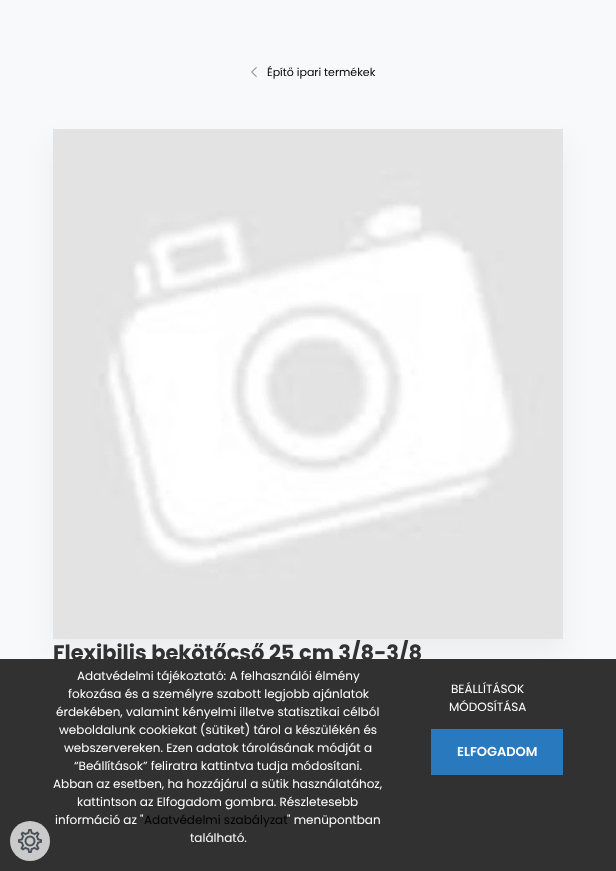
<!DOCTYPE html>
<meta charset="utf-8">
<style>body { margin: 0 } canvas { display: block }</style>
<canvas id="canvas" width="616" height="871"></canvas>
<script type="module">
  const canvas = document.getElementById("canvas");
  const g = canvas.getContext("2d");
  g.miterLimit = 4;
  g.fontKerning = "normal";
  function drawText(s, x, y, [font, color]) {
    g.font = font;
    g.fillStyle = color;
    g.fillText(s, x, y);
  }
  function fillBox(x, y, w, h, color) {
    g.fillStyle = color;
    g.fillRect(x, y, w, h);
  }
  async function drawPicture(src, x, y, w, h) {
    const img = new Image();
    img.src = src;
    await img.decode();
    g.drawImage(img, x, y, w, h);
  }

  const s1 = ["11px Poppins", "#000000"];
  const s2 = ["bold 21px Poppins", "#313131"];
  const s3 = ["12px Poppins", "#FFFFFF"];
  const s4 = ["12px Poppins", "#000000"];
  const s5 = ["600 13px Poppins", "#FFFFFF"];

  fillBox(0, 0, 616, 871, "#F8F9FA");
  await drawPicture("pic1.png", 251, 67, 6, 10);
  drawText("Építő ipari termékek", 267, 76, s1);
  g.fillStyle = "rgba(0, 0, 0, 0.05)";
  g.filter = "blur(15px)";
  g.beginPath();
  g.rect(53, 144, 510, 510);
  g.fill();
  g.filter = "none";
  await drawPicture("pic2.png", 53, 129, 510, 510);
  drawText("Flexibilis bekötőcső 25 cm 3/8-3/8", 53, 660, s2);
  fillBox(0, 659, 616, 212, "#313131");
  g.fillStyle = "#CACACA";
  g.beginPath();
  g.arc(30, 841, 20, 0, Math.PI * 2);
  g.fill();
  await drawPicture("pic3.png", 18, 829, 24, 24);
  drawText("Adatvédelmi tájékoztató: A felhasználói élmény", 77, 680, s3);
  drawText("fokozása és a személyre szabott legjobb ajánlatok", 68, 698, s3);
  drawText("érdekében, valamint kényelmi illetve statisztikai célból", 56, 716, s3);
  drawText("weboldalunk cookiekat (sütiket) tárol a készülékén és", 59, 734, s3);
  drawText("webszervereken. Ezen adatok tárolásának módját a", 64, 752, s3);
  drawText("“Beállítások” feliratra kattintva tudja módosítani.", 74, 770, s3);
  drawText("Abban az esetben, ha hozzájárul a sütik használatához,", 53, 788, s3);
  drawText("kattintson az Elfogadom gombra. Részletesebb", 77, 806, s3);
  drawText("információ az \"", 55, 824, s3);
  drawText("Adatvédelmi szabályzat", 144, 824, s4);
  drawText("\" menüpontban", 287, 824, s3);
  drawText("található.", 190, 842, s3);
  drawText("BEÁLLÍTÁSOK", 451, 693, s3);
  drawText("MÓDOSÍTÁSA", 449, 711, s3);
  fillBox(431, 729, 132, 46, "#2979BF");
  drawText("ELFOGADOM", 457, 756, s5);
</script>
